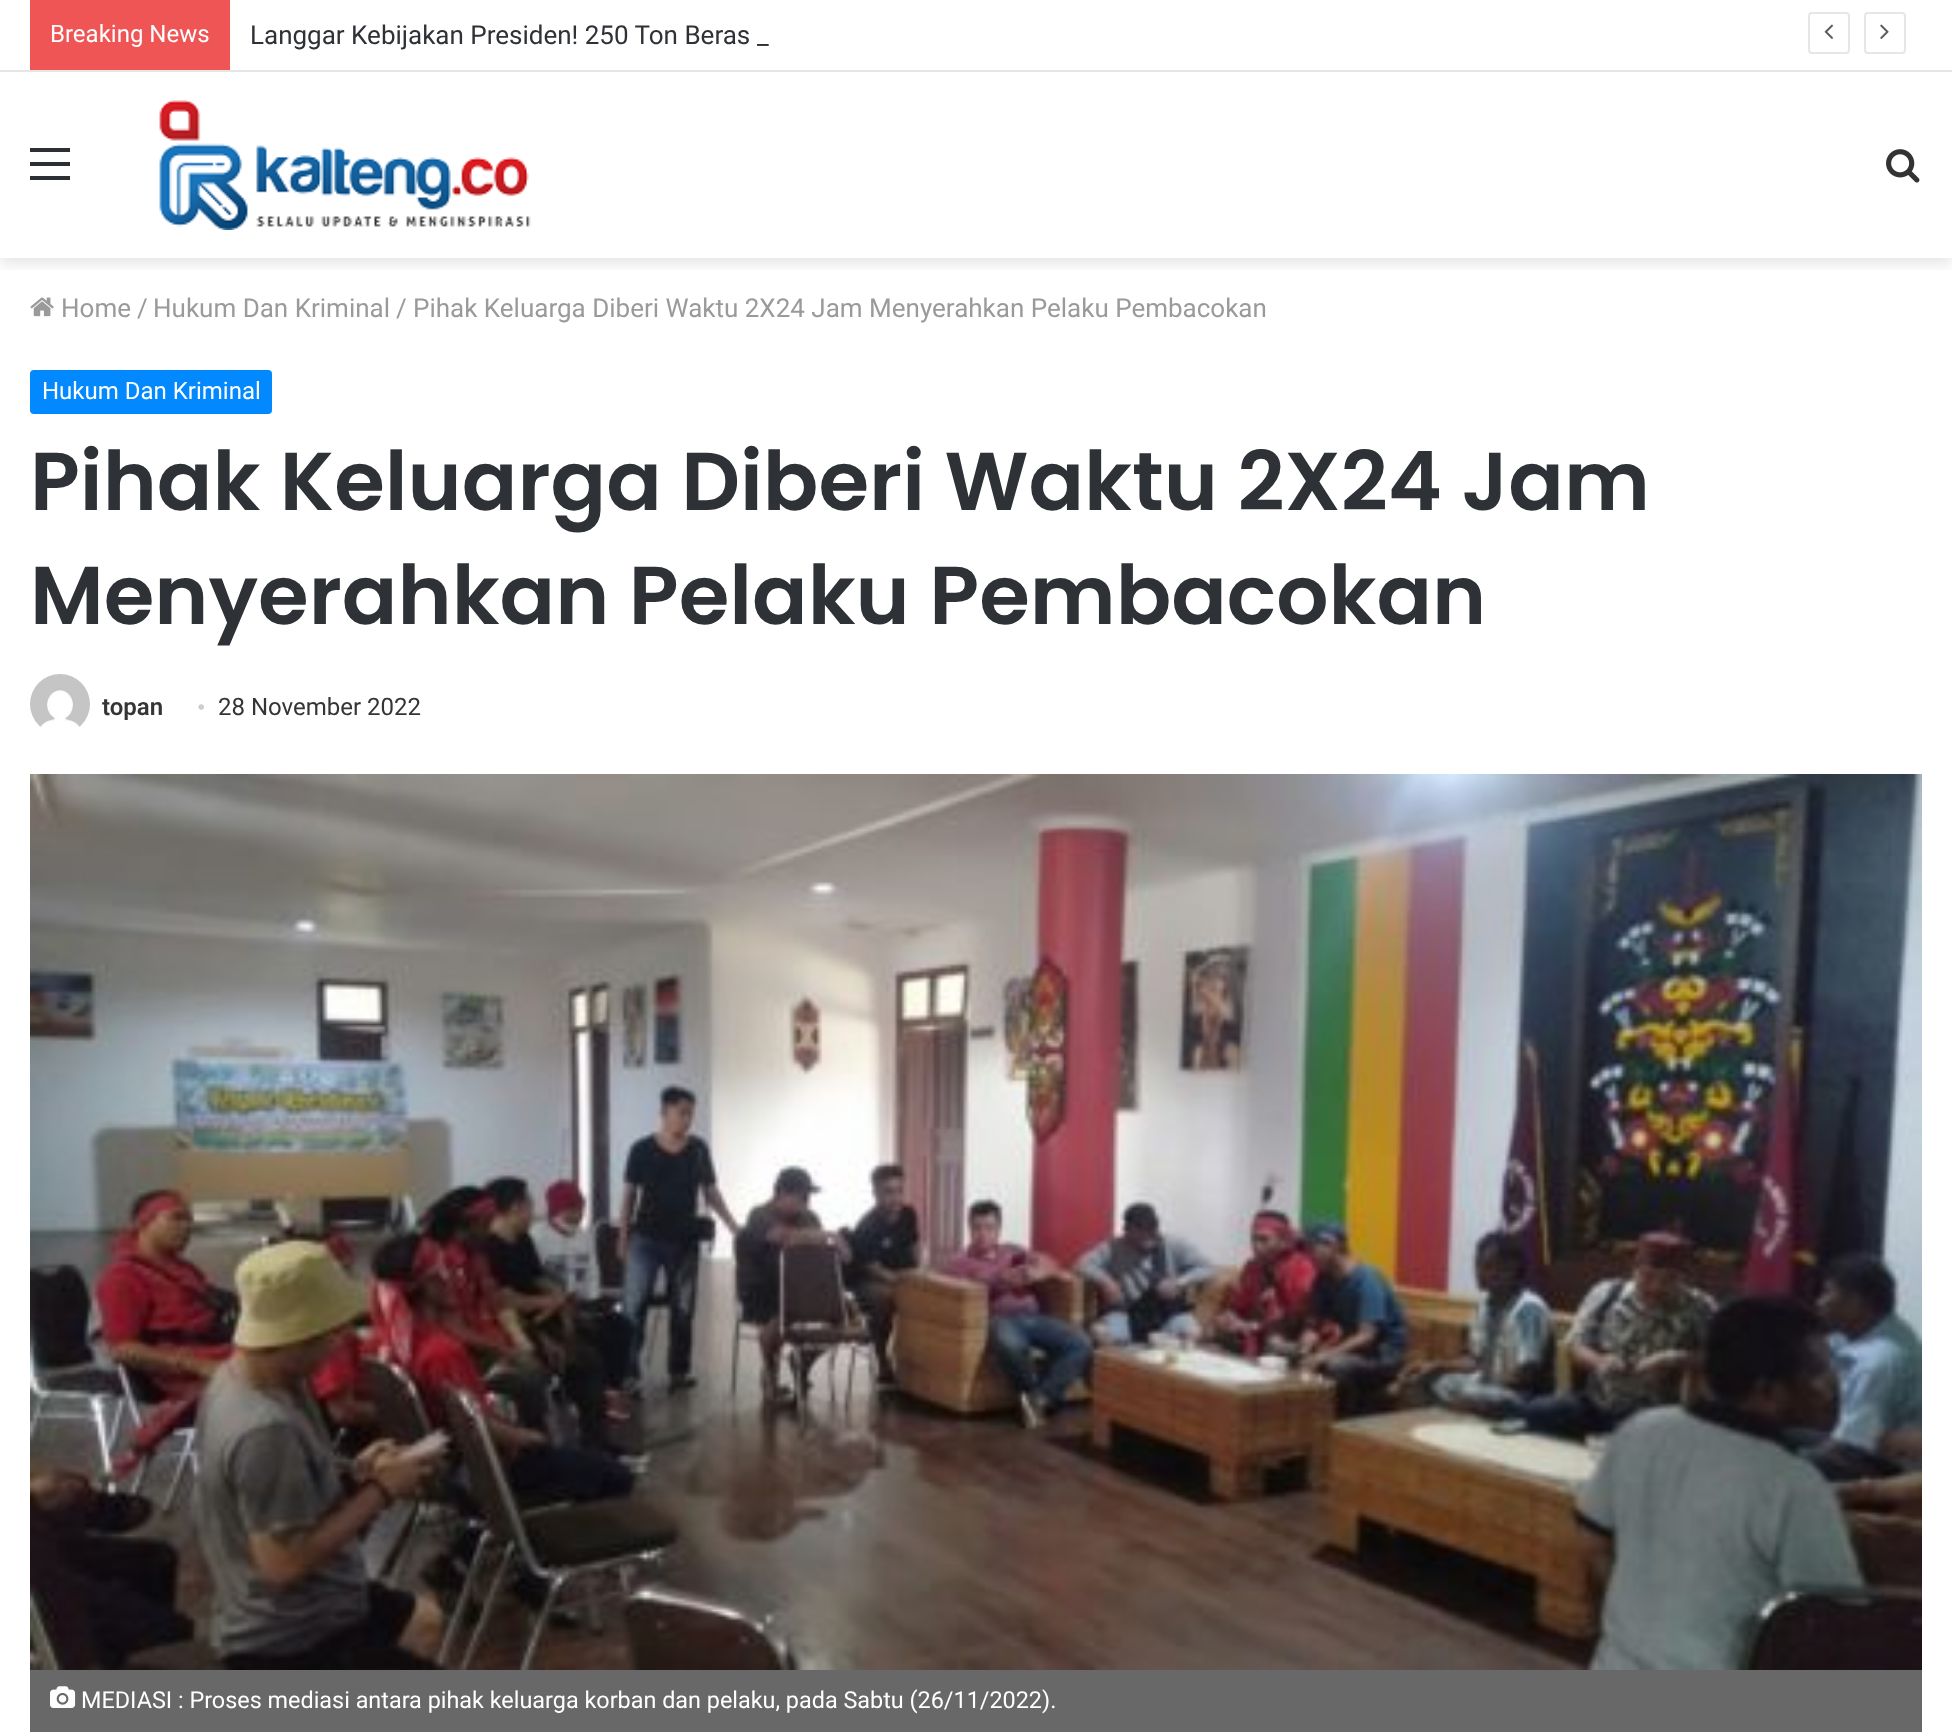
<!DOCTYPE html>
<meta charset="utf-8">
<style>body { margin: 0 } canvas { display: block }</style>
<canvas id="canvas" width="1952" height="1735"></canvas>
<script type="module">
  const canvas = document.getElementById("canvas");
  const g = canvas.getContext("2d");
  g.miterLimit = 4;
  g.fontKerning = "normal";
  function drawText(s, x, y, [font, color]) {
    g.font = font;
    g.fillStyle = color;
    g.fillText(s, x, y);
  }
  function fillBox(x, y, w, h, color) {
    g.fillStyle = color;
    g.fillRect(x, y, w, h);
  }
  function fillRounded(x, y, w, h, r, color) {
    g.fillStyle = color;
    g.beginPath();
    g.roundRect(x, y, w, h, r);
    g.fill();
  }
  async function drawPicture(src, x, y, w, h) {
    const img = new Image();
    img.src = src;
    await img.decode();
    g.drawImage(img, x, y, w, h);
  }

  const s1 = ["24px Roboto", "#FFFFFF"];
  const s2 = ["26px Roboto", "#2E3136"];
  const s3 = ["26px Roboto", "#9A9A9A"];
  const s4 = ["600 82px Poppins", "#2E3136"];
  const s5 = ["600 24px Roboto", "#353535"];
  const s6 = ["24px Liberation Serif", "#CDCDCD"];
  const s7 = ["24px Roboto", "#353535"];
  const s8 = ["23.4px Roboto", "#FFFFFF"];

  fillBox(0, 0, 1952, 1735, "#FFFFFF");
  g.save();
  g.beginPath();
  g.rect(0, 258, 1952, 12);
  g.clip();
  g.fillStyle = "rgba(0, 0, 0, 0.1)";
  g.filter = "blur(7px)";
  g.beginPath();
  g.rect(0, 78, 1952, 186);
  g.fill();
  g.filter = "none";
  g.restore();
  fillBox(9, 69, 1934, 1, "#FFFFFF");
  fillBox(0, 70, 1952, 2, "#E6E6E6");
  fillBox(30, 0, 200, 70, "#F05555");
  drawText("Breaking News", 50, 42, s1);
  drawText("Langgar Kebijakan Presiden! 250 Ton Beras", 250, 44, s2);
  drawText("_", 757, 44, s2);
  g.beginPath();
  g.roundRect(1809, 13, 40, 40, 3);
  g.strokeStyle = "#E6E6E6";
  g.lineWidth = 2;
  g.stroke();
  await drawPicture("pic1.png", 1824, 24, 10, 15);
  g.beginPath();
  g.roundRect(1865, 13, 40, 40, 3);
  g.stroke();
  await drawPicture("pic2.png", 1880, 24, 9, 15);
  fillBox(30, 162, 40, 4, "#2C2F34");
  fillBox(30, 148, 40, 4, "#2C2F34");
  fillBox(30, 176, 40, 4, "#2C2F34");
  await drawPicture("pic3.png", 159, 100, 372, 130);
  await drawPicture("pic4.png", 1886, 149, 34, 34);
  await drawPicture("pic5.png", 30, 297, 24, 20);
  drawText("Home", 61, 317, s3);
  drawText("/", 137, 317, s3);
  drawText("Hukum Dan Kriminal", 153, 317, s3);
  drawText("/", 396, 317, s3);
  drawText("Pihak Keluarga Diberi Waktu 2X24 Jam Menyerahkan Pelaku Pembacokan", 413, 317, s3);
  fillRounded(30, 370, 242, 44, 4, "#0389FF");
  drawText("Hukum Dan Kriminal", 42, 399, s1);
  drawText("Pihak Keluarga Diberi Waktu 2X24 Jam", 30, 510, s4);
  drawText("Menyerahkan Pelaku Pembacokan", 30, 624, s4);
  await drawPicture("pic6.png", 30, 674, 60, 53);
  drawText("topan", 102, 715, s5);
  drawText("•", 197, 715, s6);
  drawText("28 November 2022", 218, 715, s7);
  await drawPicture("pic7.png", 30, 774, 1892, 896);
  fillBox(30, 1670, 1892, 62, "#686868");
  await drawPicture("pic8.png", 50, 1686, 26, 22);
  drawText("MEDIASI : Proses mediasi antara pihak keluarga korban dan pelaku, pada Sabtu (26/11/2022).", 81, 1708, s8);
</script>
